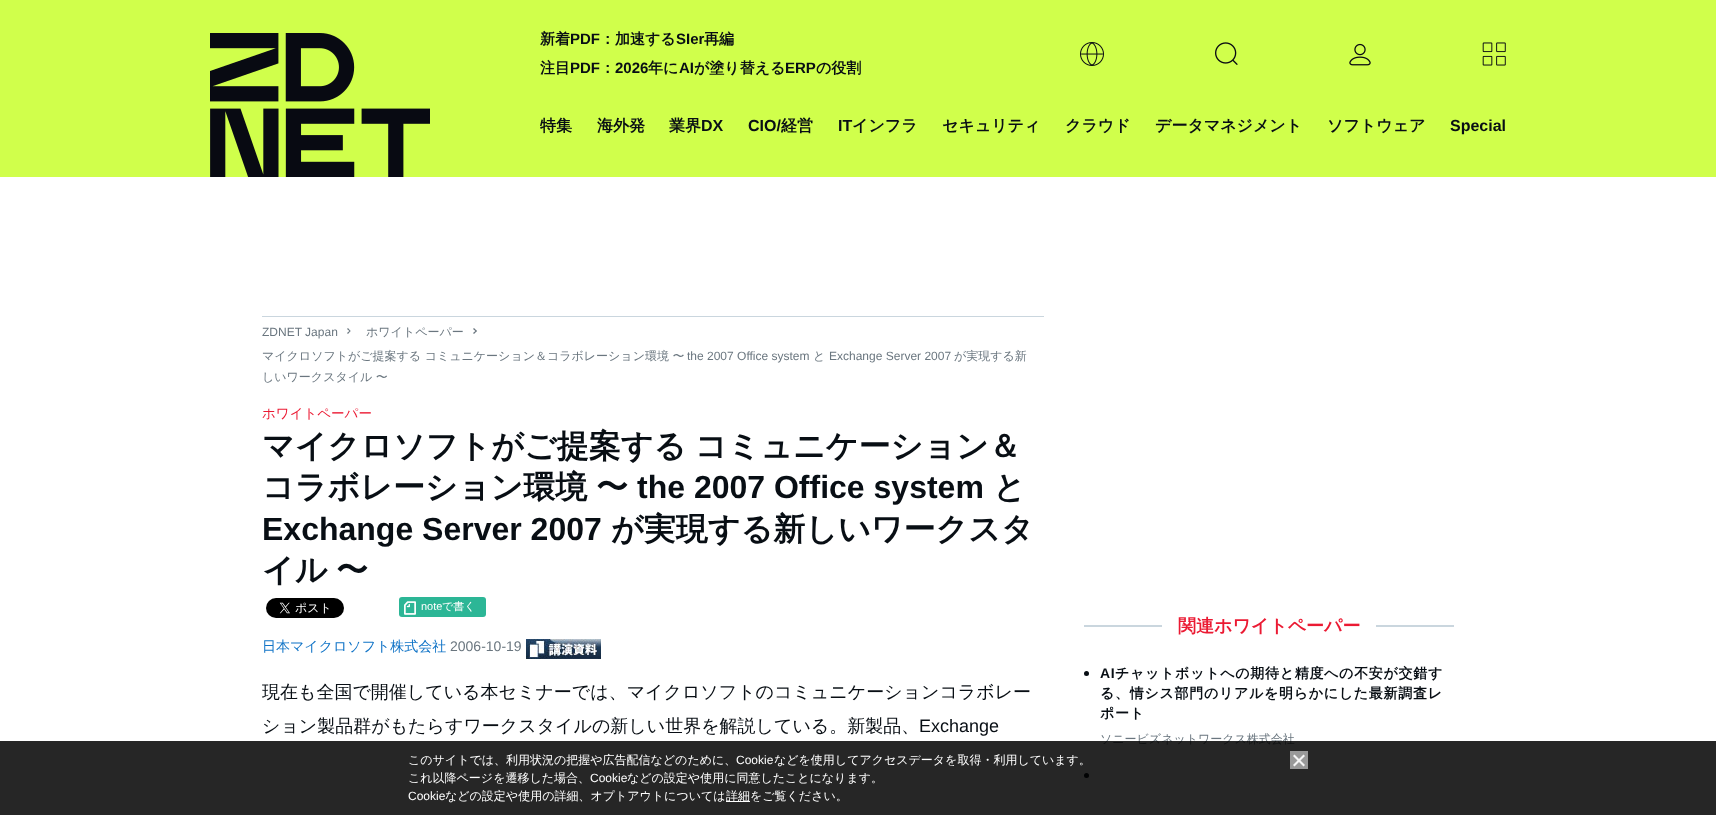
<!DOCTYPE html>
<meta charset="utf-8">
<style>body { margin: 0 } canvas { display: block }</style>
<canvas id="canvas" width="1716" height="815"></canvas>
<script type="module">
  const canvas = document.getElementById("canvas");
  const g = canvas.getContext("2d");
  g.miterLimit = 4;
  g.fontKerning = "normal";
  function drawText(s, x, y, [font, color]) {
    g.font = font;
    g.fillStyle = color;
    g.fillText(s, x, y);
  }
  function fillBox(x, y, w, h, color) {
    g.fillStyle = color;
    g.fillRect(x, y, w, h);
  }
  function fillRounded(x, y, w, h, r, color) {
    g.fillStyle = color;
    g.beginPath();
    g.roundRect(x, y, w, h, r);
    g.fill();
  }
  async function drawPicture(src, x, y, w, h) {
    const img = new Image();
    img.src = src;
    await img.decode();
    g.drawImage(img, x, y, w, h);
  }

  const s1 = ["bold 15px WenQuanYi Zen Hei", "#080E14"];
  const s2 = ["bold 15px Liberation Sans", "#080E14"];
  const s3 = ["bold 16px WenQuanYi Zen Hei", "#080E14"];
  const s4 = ["bold 16px Liberation Sans", "#080E14"];
  const s5 = ["12px Liberation Sans", "#6A767F"];
  const s6 = ["500 12px WenQuanYi Zen Hei", "#6A767F"];
  const s7 = ["500 13.5px WenQuanYi Zen Hei", "#EB1A33"];
  const s8 = ["bold 32px WenQuanYi Zen Hei", "#080E14"];
  const s9 = ["bold 32px Liberation Sans", "#080E14"];
  const s10 = ["11px Liberation Sans", "#FFFFFF"];
  const s11 = ["500 11px WenQuanYi Zen Hei", "#FFFFFF"];
  const s12 = ["500 14px WenQuanYi Zen Hei", "#1174C7"];
  const s13 = ["14px Liberation Sans", "#6A767F"];
  const s14 = ["500 18px WenQuanYi Zen Hei", "#080E14"];
  const s15 = ["18px Liberation Sans", "#080E14"];
  const s16 = ["bold 18px WenQuanYi Zen Hei", "#EB1A33"];
  const s17 = ["bold 14px Liberation Sans", "#080E14"];
  const s18 = ["bold 14px WenQuanYi Zen Hei", "#080E14"];
  const s19 = ["500 12px WenQuanYi Zen Hei", "#FFFFFF"];
  const s20 = ["12px Liberation Sans", "#FFFFFF"];

  fillBox(0, 0, 1716, 815, "#FFFFFF");
  fillBox(0, 0, 1716, 177, "#D0FF4B");
  await drawPicture("pic1.png", 210, 33, 220, 144);
  drawText("新着", 540, 44, s1);
  drawText("PDF", 570, 44, s2);
  drawText("：加速する", 600, 44, s1);
  drawText("SIer", 676, 44, s2);
  drawText("再編", 704, 44, s1);
  drawText("注目", 540, 73, s1);
  drawText("PDF", 570, 73, s2);
  drawText("：", 600, 73, s1);
  drawText("2026", 615, 73, s2);
  drawText("年に", 648, 73, s1);
  drawText("AI", 679, 73, s2);
  drawText("が塗り替える", 694, 73, s1);
  drawText("ERP", 785, 73, s2);
  drawText("の役割", 816, 73, s1);
  await drawPicture("pic2.png", 1080, 42, 24, 24);
  await drawPicture("pic3.png", 1215, 42, 23, 23);
  await drawPicture("pic4.png", 1349, 43, 22, 23);
  await drawPicture("pic5.png", 1482, 42, 24, 24);
  drawText("特集", 540, 131, s3);
  drawText("海外発", 597, 131, s3);
  drawText("業界", 669, 131, s3);
  drawText("DX", 701, 131, s4);
  drawText("CIO/", 748, 131, s4);
  drawText("経営", 781, 131, s3);
  drawText("IT", 838, 131, s4);
  drawText("インフラ", 852, 131, s3);
  drawText("セキュリティ", 942, 131, s3);
  drawText("クラウド", 1065, 131, s3);
  drawText("データマネジメント", 1155, 131, s3);
  drawText("ソフトウェア", 1327, 131, s3);
  drawText("Special", 1450, 131, s4);
  fillBox(262, 316, 782, 1, "#CAD6DE");
  drawText("ZDNET Japan", 262, 336, s5);
  g.beginPath();
  g.moveTo(348, 328);
  g.lineTo(350.5, 331);
  g.lineTo(350, 331.5);
  g.lineTo(347, 329);
  g.closePath();
  g.fill();
  g.beginPath();
  g.moveTo(350, 330.5);
  g.lineTo(350.5, 331);
  g.lineTo(348, 334);
  g.lineTo(347, 333);
  g.closePath();
  g.fill();
  drawText("ホワイトペーパー", 366, 336, s6);
  g.beginPath();
  g.moveTo(474, 328);
  g.lineTo(477, 331);
  g.lineTo(476, 331.5);
  g.lineTo(473, 329);
  g.closePath();
  g.fill();
  g.beginPath();
  g.moveTo(476, 330.5);
  g.lineTo(477, 331);
  g.lineTo(474, 334);
  g.lineTo(473, 333);
  g.closePath();
  g.fill();
  drawText("マイクロソフトがご提案する コミュニケーション＆コラボレーション環境 〜", 262, 360, s6);
  drawText("the 2007 Office system", 687, 360, s5);
  drawText("と", 813, 360, s6);
  drawText("Exchange Server 2007", 829, 360, s5);
  drawText("が実現する新", 954, 360, s6);
  drawText("しいワークスタイル 〜", 262, 381, s6);
  drawText("ホワイトペーパー", 262, 418, s7);
  g.wordSpacing = "-1px";
  drawText("マイクロソフトがご提案する コミュニケーション＆", 262, 457, s8);
  g.wordSpacing = "0px";
  drawText("コラボレーション環境", 262, 498, s8);
  drawText("〜", 596, 498, s8);
  drawText("the 2007 Office system", 637, 498, s9);
  drawText("と", 993, 498, s8);
  drawText("Exchange Server 2007", 262, 540, s9);
  drawText("が実現する新しいワークスタ", 611, 540, s8);
  g.wordSpacing = "-1px";
  drawText("イル 〜", 262, 581, s8);
  await drawPicture("pic6.png", 266, 598, 78, 20);
  fillRounded(399, 597, 87, 20, 3, "#2CB696");
  await drawPicture("pic7.png", 404, 601, 12, 14);
  g.wordSpacing = "0px";
  drawText("note", 421, 610, s10);
  drawText("で書く", 442, 610, s11);
  drawText("日本マイクロソフト株式会社", 262, 651, s12);
  drawText("2006-10-19", 450, 651, s13);
  await drawPicture("pic8.png", 526, 639, 75, 20);
  drawText("現在も全国で開催している本セミナーでは、マイクロソフトのコミュニケーションコラボレー", 262, 698, s14);
  drawText("ション製品群がもたらすワークスタイルの新しい世界を解説している。新製品、", 262, 732, s14);
  drawText("Exchange", 919, 732, s15);
  fillBox(1084, 625, 370, 2, "#CAD6DE");
  fillBox(1162, 625, 214, 2, "#FFFFFF");
  drawText("関連ホワイトペーパー", 1178, 632, s16);
  g.fillStyle = "#080E14";
  g.beginPath();
  g.arc(1086.5, 673.5, 2.5, 0, Math.PI * 2);
  g.fill();
  g.letterSpacing = "0.7px";
  drawText("AI", 1100, 678, s17);
  drawText("チャットボットへの期待と精度への不安が交錯す", 1115, 678, s18);
  drawText("る、情シス部門のリアルを明らかにした最新調査レ", 1100, 698, s18);
  drawText("ポート", 1100, 718, s18);
  g.letterSpacing = "0px";
  drawText("ソニービズネットワークス株式会社", 1100, 743, s6);
  g.fillStyle = "#080E14";
  g.beginPath();
  g.arc(1086.5, 775.5, 2.5, 0, Math.PI * 2);
  g.fill();
  fillBox(0, 741, 1716, 74, "rgba(0, 0, 0, 0.85)");
  drawText("このサイトでは、利用状況の把握や広告配信などのために、", 408, 764, s19);
  drawText("Cookie", 736, 764, s20);
  drawText("などを使用してアクセスデータを取得・利用しています。", 774, 764, s19);
  fillBox(1290, 751, 18, 18, "#999999");
  g.fillStyle = "#F5F5F5";
  g.beginPath();
  g.moveTo(1293, 756);
  g.lineTo(1294.5, 754.5);
  g.lineTo(1305, 765);
  g.lineTo(1303.5, 766.5);
  g.closePath();
  g.fill();
  g.beginPath();
  g.moveTo(1303.5, 754.5);
  g.lineTo(1305, 756);
  g.lineTo(1294.5, 766.5);
  g.lineTo(1293, 765);
  g.closePath();
  g.fill();
  drawText("これ以降ページを遷移した場合、", 408, 782, s19);
  drawText("Cookie", 590, 782, s20);
  drawText("などの設定や使用に同意したことになります。", 627, 782, s19);
  drawText("Cookie", 408, 800, s20);
  drawText("などの設定や使用の詳細、オプトアウトについては", 445, 800, s19);
  fillBox(726, 801, 24, 1, "#FFFFFF");
  drawText("詳細をご覧ください。", 726, 800, s19);
</script>
